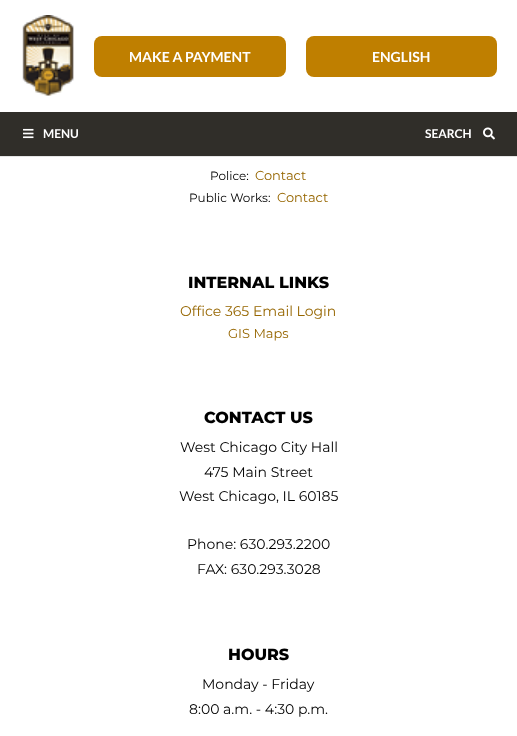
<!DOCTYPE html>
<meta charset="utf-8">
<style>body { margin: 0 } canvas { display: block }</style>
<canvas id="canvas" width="517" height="736"></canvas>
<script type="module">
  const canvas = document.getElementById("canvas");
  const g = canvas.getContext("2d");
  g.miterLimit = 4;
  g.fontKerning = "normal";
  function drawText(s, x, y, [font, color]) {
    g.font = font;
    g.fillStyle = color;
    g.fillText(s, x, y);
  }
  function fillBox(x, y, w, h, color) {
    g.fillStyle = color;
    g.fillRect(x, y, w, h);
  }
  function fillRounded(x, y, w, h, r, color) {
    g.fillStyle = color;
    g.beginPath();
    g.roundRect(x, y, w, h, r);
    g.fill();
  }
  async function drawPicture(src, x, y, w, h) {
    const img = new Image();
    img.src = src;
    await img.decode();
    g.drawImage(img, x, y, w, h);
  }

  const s1 = ["bold 14px Lato", "#FFFFFF"];
  const s2 = ["bold 12px Lato", "#FFFFFF"];
  const s3 = ["12px Montserrat", "#000000"];
  const s4 = ["13px Montserrat", "#966600"];
  const s5 = ["800 16px Montserrat", "#000000"];
  const s6 = ["14px Montserrat", "#966600"];
  const s7 = ["14px Montserrat", "#000000"];

  fillBox(0, 0, 517, 736, "#FFFFFF");
  fillBox(0, 156, 517, 1, "#E5E5E5");
  await drawPicture("pic1.png", 22, 15, 52, 81);
  fillRounded(94, 36, 192, 41, 8, "#BF7F00");
  drawText("MAKE A PAYMENT", 129, 62, s1);
  fillRounded(306, 36, 191, 41, 8, "#BF7F00");
  drawText("ENGLISH", 372, 62, s1);
  fillBox(0, 112, 517, 44, "#302E29");
  await drawPicture("pic2.png", 23, 128, 11, 11);
  drawText("MENU", 43, 138, s2);
  drawText("SEARCH", 425, 138, s2);
  await drawPicture("pic3.png", 483, 127, 12, 13);
  drawText("Police:", 210, 180, s3);
  drawText("Contact", 255, 180, s4);
  drawText("Public Works:", 189, 202, s3);
  drawText("Contact", 277, 202, s4);
  drawText("INTERNAL LINKS", 188, 288, s5);
  drawText("Office 365 Email Login", 180, 316, s6);
  drawText("GIS Maps", 228, 338, s4);
  drawText("CONTACT US", 204, 423, s5);
  drawText("West Chicago City Hall", 180, 452, s7);
  drawText("475 Main Street", 204, 477, s7);
  drawText("West Chicago, IL 60185", 179, 501, s7);
  drawText("Phone: 630.293.2200", 187, 549, s7);
  drawText("FAX: 630.293.3028", 197, 574, s7);
  drawText("HOURS", 228, 660, s5);
  drawText("Monday - Friday", 202, 689, s7);
  drawText("8:00 a.m. - 4:30 p.m.", 189, 714, s7);
</script>
